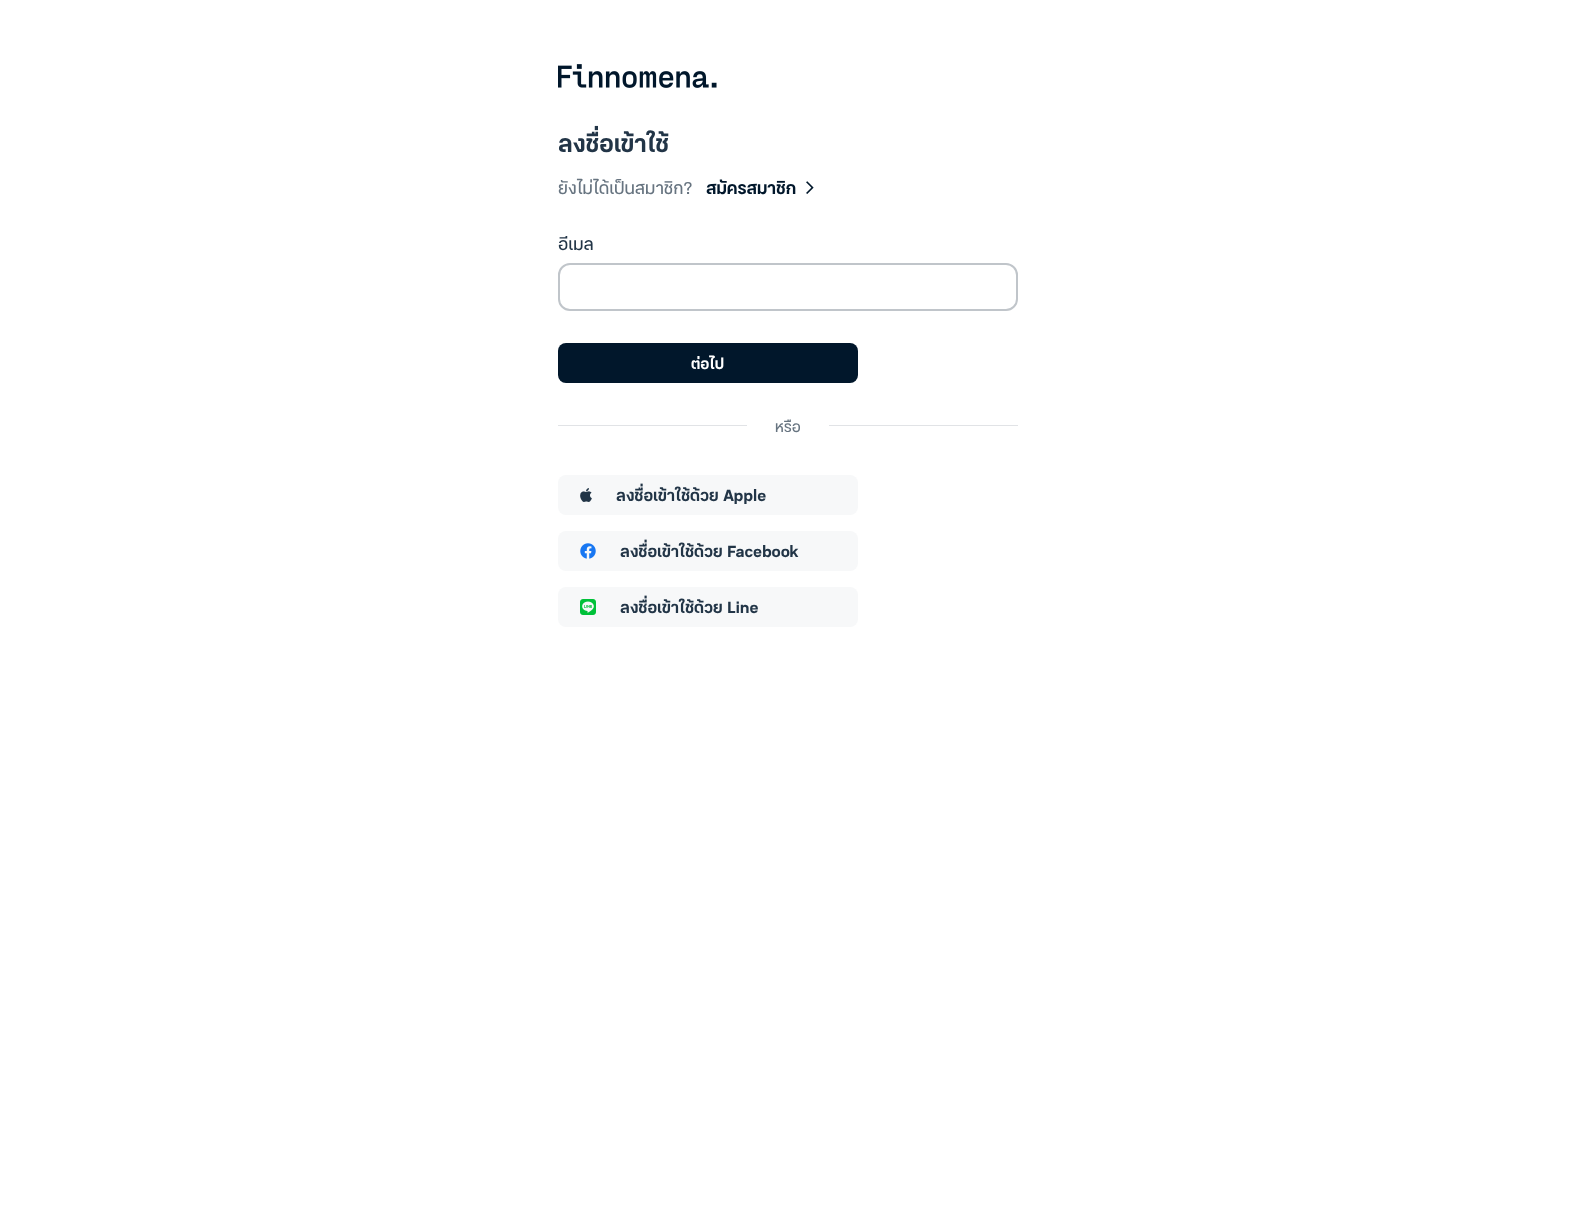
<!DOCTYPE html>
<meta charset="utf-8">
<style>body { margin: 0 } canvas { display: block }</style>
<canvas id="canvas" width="1576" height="1218"></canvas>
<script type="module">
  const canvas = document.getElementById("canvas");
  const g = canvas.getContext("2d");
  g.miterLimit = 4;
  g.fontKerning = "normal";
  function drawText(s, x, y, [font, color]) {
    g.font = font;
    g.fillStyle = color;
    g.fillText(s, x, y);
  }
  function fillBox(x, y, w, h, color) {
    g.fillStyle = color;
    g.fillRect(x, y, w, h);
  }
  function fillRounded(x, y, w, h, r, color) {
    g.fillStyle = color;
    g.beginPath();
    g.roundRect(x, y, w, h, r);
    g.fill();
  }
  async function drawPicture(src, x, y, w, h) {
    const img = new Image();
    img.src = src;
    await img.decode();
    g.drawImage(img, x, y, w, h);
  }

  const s1 = ["bold 24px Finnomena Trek", "#223547"];
  const s2 = ["17px Finnomena Trek", "#677480"];
  const s3 = ["bold 17px Finnomena Trek", "#01172B"];
  const s4 = ["17px Finnomena Trek", "#223547"];
  const s5 = ["bold 15px Finnomena Trek", "#FFFFFF"];
  const s6 = ["15px Finnomena Trek", "#677480"];
  const s7 = ["bold 16px Finnomena Trek", "#223547"];

  fillBox(0, 0, 1576, 1218, "#FFFFFF");
  await drawPicture("pic1.png", 558, 64, 159, 24);
  drawText("ลงชื่อเข้าใช้", 558, 152, s1);
  drawText("ยังไม่ได้เป็นสมาชิก?", 558, 194, s2);
  drawText("สมัครสมาชิก", 706, 194, s3);
  await drawPicture("pic2.png", 806, 181, 8, 13);
  drawText("อีเมล", 558, 250, s4);
  g.beginPath();
  g.roundRect(559, 264, 458, 46, 11);
  g.strokeStyle = "#C0C5CA";
  g.lineWidth = 2;
  g.stroke();
  fillRounded(558, 343, 300, 40, 8, "#01172B");
  drawText("ต่อไป", 691, 369, s5);
  fillBox(558, 425, 189, 1, "#E1E3E6");
  drawText("หรือ", 775, 432, s6);
  fillBox(829, 425, 189, 1, "#E1E3E6");
  fillRounded(558, 475, 300, 40, 8, "#F7F8F9");
  await drawPicture("pic3.png", 580, 488, 12, 14);
  drawText("ลงชื่อเข้าใช้ด้วย Apple", 616, 501, s7);
  fillRounded(558, 531, 300, 40, 8, "#F7F8F9");
  await drawPicture("pic4.png", 580, 543, 16, 16);
  drawText("ลงชื่อเข้าใช้ด้วย Facebook", 620, 557, s7);
  fillRounded(558, 587, 300, 40, 8, "#F7F8F9");
  await drawPicture("pic5.png", 580, 599, 16, 16);
  drawText("ลงชื่อเข้าใช้ด้วย Line", 620, 613, s7);
</script>
